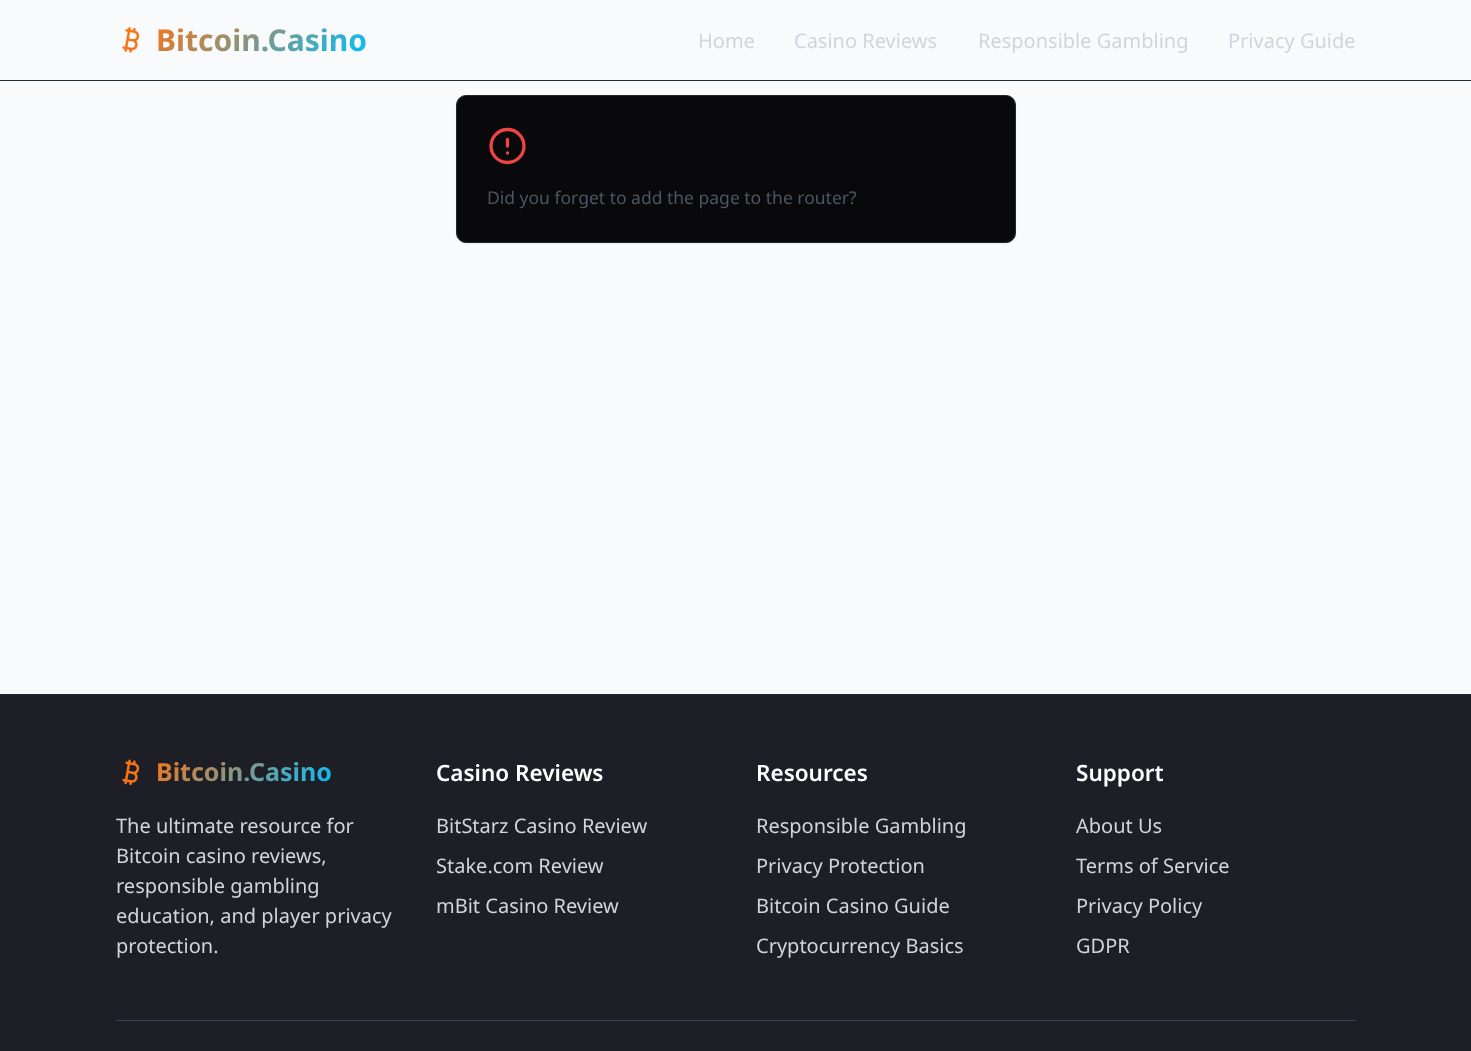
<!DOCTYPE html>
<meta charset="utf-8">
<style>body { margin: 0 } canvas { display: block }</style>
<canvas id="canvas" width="1471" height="1051"></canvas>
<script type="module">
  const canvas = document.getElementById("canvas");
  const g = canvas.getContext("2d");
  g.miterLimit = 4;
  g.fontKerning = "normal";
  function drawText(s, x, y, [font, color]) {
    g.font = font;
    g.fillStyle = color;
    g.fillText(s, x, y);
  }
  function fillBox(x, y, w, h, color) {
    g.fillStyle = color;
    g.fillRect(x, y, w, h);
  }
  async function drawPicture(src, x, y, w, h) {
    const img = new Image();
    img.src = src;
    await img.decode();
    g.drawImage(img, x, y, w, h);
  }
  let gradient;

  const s1 = ["20px Noto Sans", "#D1D5DB"];
  const s2 = ["17.5px Noto Sans", "#4B5563"];
  const s3 = ["600 22.5px Noto Sans", "#FFFFFF"];

  fillBox(0, 0, 1471, 1051, "#F9FAFB");
  fillBox(0, 80, 1471, 1, "#1F2937");
  await drawPicture("pic1.png", 122, 27, 18, 26);
  g.font = "bold 30px Noto Sans";
  gradient = g.createLinearGradient(198, -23, 324, 103);
  gradient.addColorStop(0, "#F97415");
  gradient.addColorStop(1, "#00BFFF");
  g.fillStyle = gradient;
  g.fillText("Bitcoin.Casino", 156, 51);
  drawText("Home", 698, 48, s1);
  drawText("Casino Reviews", 794, 48, s1);
  drawText("Responsible Gambling", 978, 48, s1);
  drawText("Privacy Guide", 1228, 48, s1);
  g.fillStyle = "rgba(0, 0, 0, 0.05)";
  g.filter = "blur(1px)";
  g.beginPath();
  g.roundRect(456, 96, 560, 148, 10);
  g.fill();
  g.filter = "none";
  g.fillStyle = "#09090B";
  g.beginPath();
  g.roundRect(456.5, 95.5, 559, 147, 9.5);
  g.fill();
  g.strokeStyle = "#27272A";
  g.stroke();
  g.beginPath();
  g.arc(507.5, 146, 16.5, 0, Math.PI * 2);
  g.strokeStyle = "#EF4444";
  g.lineWidth = 3.3;
  g.stroke();
  g.beginPath();
  g.moveTo(507.5, 139.5);
  g.lineTo(507.5, 146);
  g.moveTo(507.5, 153);
  g.lineTo(507.5, 153);
  g.lineCap = "round";
  g.lineJoin = "round";
  g.stroke();
  drawText("Did you forget to add the page to the router?", 487, 204, s2);
  fillBox(0, 695, 1471, 356, "#1D1E26");
  fillBox(0, 694, 1471, 1, "#1F2937");
  await drawPicture("pic2.png", 122, 759, 18, 27);
  g.font = "bold 25px Noto Sans";
  gradient = g.createLinearGradient(191, 720, 296, 825);
  gradient.addColorStop(0, "#F97415");
  gradient.addColorStop(1, "#00BFFF");
  g.fillStyle = gradient;
  g.fillText("Bitcoin.Casino", 156, 781);
  drawText("The ultimate resource for", 116, 833, s1);
  drawText("Bitcoin casino reviews,", 116, 863, s1);
  drawText("responsible gambling", 116, 893, s1);
  drawText("education, and player privacy", 116, 923, s1);
  drawText("protection.", 116, 953, s1);
  drawText("Casino Reviews", 436, 781, s3);
  drawText("BitStarz Casino Review", 436, 833, s1);
  drawText("Stake.com Review", 436, 873, s1);
  drawText("mBit Casino Review", 436, 913, s1);
  drawText("Resources", 756, 781, s3);
  drawText("Responsible Gambling", 756, 833, s1);
  drawText("Privacy Protection", 756, 873, s1);
  drawText("Bitcoin Casino Guide", 756, 913, s1);
  drawText("Cryptocurrency Basics", 756, 953, s1);
  drawText("Support", 1076, 781, s3);
  drawText("About Us", 1076, 833, s1);
  drawText("Terms of Service", 1076, 873, s1);
  drawText("Privacy Policy", 1076, 913, s1);
  drawText("GDPR", 1076, 953, s1);
  fillBox(116, 1020, 1240, 1, "#374151");
</script>
